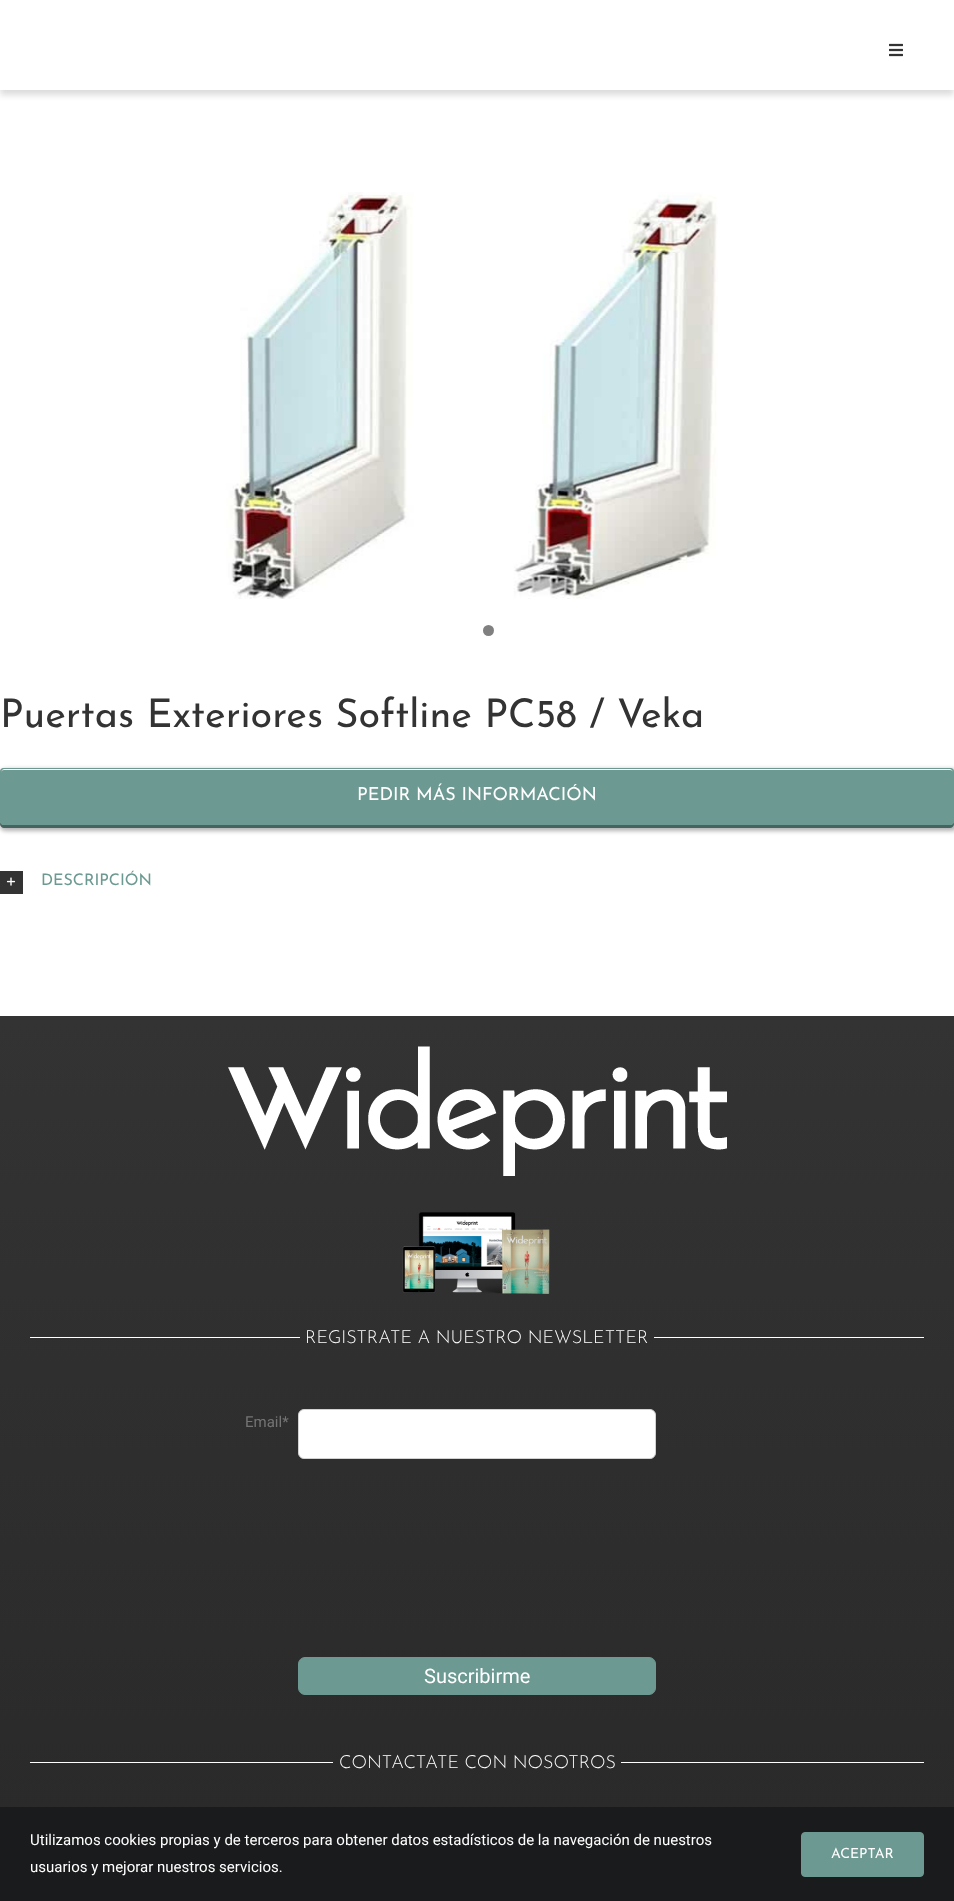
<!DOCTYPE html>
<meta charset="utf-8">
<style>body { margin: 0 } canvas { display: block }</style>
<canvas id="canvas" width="954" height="1901"></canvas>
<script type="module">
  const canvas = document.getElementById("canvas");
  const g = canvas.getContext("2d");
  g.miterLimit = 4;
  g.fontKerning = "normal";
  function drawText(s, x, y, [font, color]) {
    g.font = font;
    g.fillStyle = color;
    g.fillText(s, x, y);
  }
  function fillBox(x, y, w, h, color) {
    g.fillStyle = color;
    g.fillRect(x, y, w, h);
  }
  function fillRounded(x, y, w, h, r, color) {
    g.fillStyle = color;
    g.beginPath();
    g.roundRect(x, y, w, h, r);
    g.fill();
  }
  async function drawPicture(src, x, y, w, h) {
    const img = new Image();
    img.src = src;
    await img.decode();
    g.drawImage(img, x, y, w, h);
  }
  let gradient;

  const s1 = ["39.6px Josefin Sans", "#333333"];
  const s2 = ["18px Josefin Sans", "#FFFFFF"];
  const s3 = ["16px Josefin Sans", "#6C9991"];
  const s4 = ["300 18px Josefin Sans", "#FFFFFF"];
  const s5 = ["15px Roboto", "#747474"];
  const s6 = ["20px Roboto", "#FFFFFF"];
  const s7 = ["15px Roboto", "#FFFFFF"];
  const s8 = ["14px Josefin Sans", "#FFFFFF"];

  fillBox(0, 0, 954, 1901, "#FFFFFF");
  g.save();
  g.beginPath();
  g.rect(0, 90, 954, 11);
  g.clip();
  g.fillStyle = "#DBDBDB";
  g.filter = "blur(3px)";
  g.beginPath();
  g.rect(0, 5, 954, 90);
  g.fill();
  g.filter = "none";
  g.restore();
  await drawPicture("pic1.png", 889, 43, 14, 14);
  await drawPicture("pic2.png", 226, 192, 492, 407);
  g.fillStyle = "#808080";
  g.beginPath();
  g.arc(488.5, 630.5, 5.5, 0, Math.PI * 2);
  g.fill();
  drawText("Puertas Exteriores Softline PC58 / Veka", 0, 727, s1);
  g.fillStyle = "rgba(0, 0, 0, 0.3)";
  g.filter = "blur(2px)";
  g.beginPath();
  g.roundRect(-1, 769, 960, 62, 7);
  g.fill();
  g.filter = "none";
  g.fillStyle = "#45635F";
  g.beginPath();
  g.moveTo(0, 821);
  g.lineTo(0, 824);
  g.bezierCurveTo(0, 826, 2, 828, 4, 828);
  g.lineTo(950, 828);
  g.bezierCurveTo(952, 828, 954, 826, 954, 824);
  g.lineTo(954, 821);
  g.bezierCurveTo(954, 823, 952, 825, 950, 825);
  g.lineTo(4, 825);
  g.bezierCurveTo(2, 825, 0, 823, 0, 821);
  g.closePath();
  g.fill();
  fillRounded(0, 768, 954, 57, 4, "#6C9991");
  g.fillStyle = "#FFFFFF";
  g.beginPath();
  g.moveTo(4, 770);
  g.lineTo(950, 770);
  g.bezierCurveTo(952, 770, 953, 771, 953, 773);
  g.bezierCurveTo(953, 771, 952, 769, 950, 769);
  g.lineTo(4, 769);
  g.bezierCurveTo(2, 769, 1, 771, 1, 773);
  g.bezierCurveTo(1, 771, 2, 770, 4, 770);
  g.closePath();
  g.fill();
  g.beginPath();
  g.roundRect(0.5, 768.5, 953, 56, 3.5);
  g.strokeStyle = "#6C9991";
  g.stroke();
  drawText("PEDIR MÁS INFORMACIÓN", 357, 800, s2);
  fillBox(0, 871, 23, 23, "#333333");
  await drawPicture("pic3.png", 6, 877, 10, 9);
  drawText("DESCRIPCIÓN", 41, 885, s3);
  gradient = g.createLinearGradient(477, 1016, 477, 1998);
  gradient.addColorStop(0, "#333333");
  gradient.addColorStop(1, "#282828");
  g.fillStyle = gradient;
  g.fillRect(0, 1016, 954, 791);
  await drawPicture("pic4.png", 228, 1046, 499, 130);
  await drawPicture("pic5.png", 402, 1212, 148, 82);
  fillBox(30, 1337, 270, 1, "#FFFFFF");
  drawText("REGISTRATE A NUESTRO NEWSLETTER", 305, 1343, s4);
  fillBox(654, 1337, 270, 1, "#FFFFFF");
  drawText("Email*", 245, 1427, s5);
  g.fillStyle = "#FFFFFF";
  g.beginPath();
  g.roundRect(298.5, 1409.5, 357, 49, 5.5);
  g.fill();
  g.strokeStyle = "#D2D2D2";
  g.stroke();
  g.fillStyle = "#6C9991";
  g.beginPath();
  g.roundRect(298.5, 1657.5, 357, 37, 6.5);
  g.fill();
  g.strokeStyle = "#6C9991";
  g.stroke();
  drawText("Suscribirme", 424, 1683, s6);
  fillBox(30, 1762, 303, 1, "#FFFFFF");
  drawText("CONTACTATE CON NOSOTROS", 339, 1768, s4);
  fillBox(621, 1762, 303, 1, "#FFFFFF");
  fillBox(0, 1807, 954, 94, "#1A1B1C");
  drawText("Utilizamos cookies propias y de terceros para obtener datos estadísticos de la navegación de nuestros", 30, 1845, s7);
  drawText("usuarios y mejorar nuestros servicios.", 30, 1872, s7);
  g.fillStyle = "#6C9991";
  g.beginPath();
  g.roundRect(801.5, 1832.5, 122, 44, 3.5);
  g.fill();
  g.stroke();
  drawText("ACEPTAR", 831, 1858, s8);
</script>
